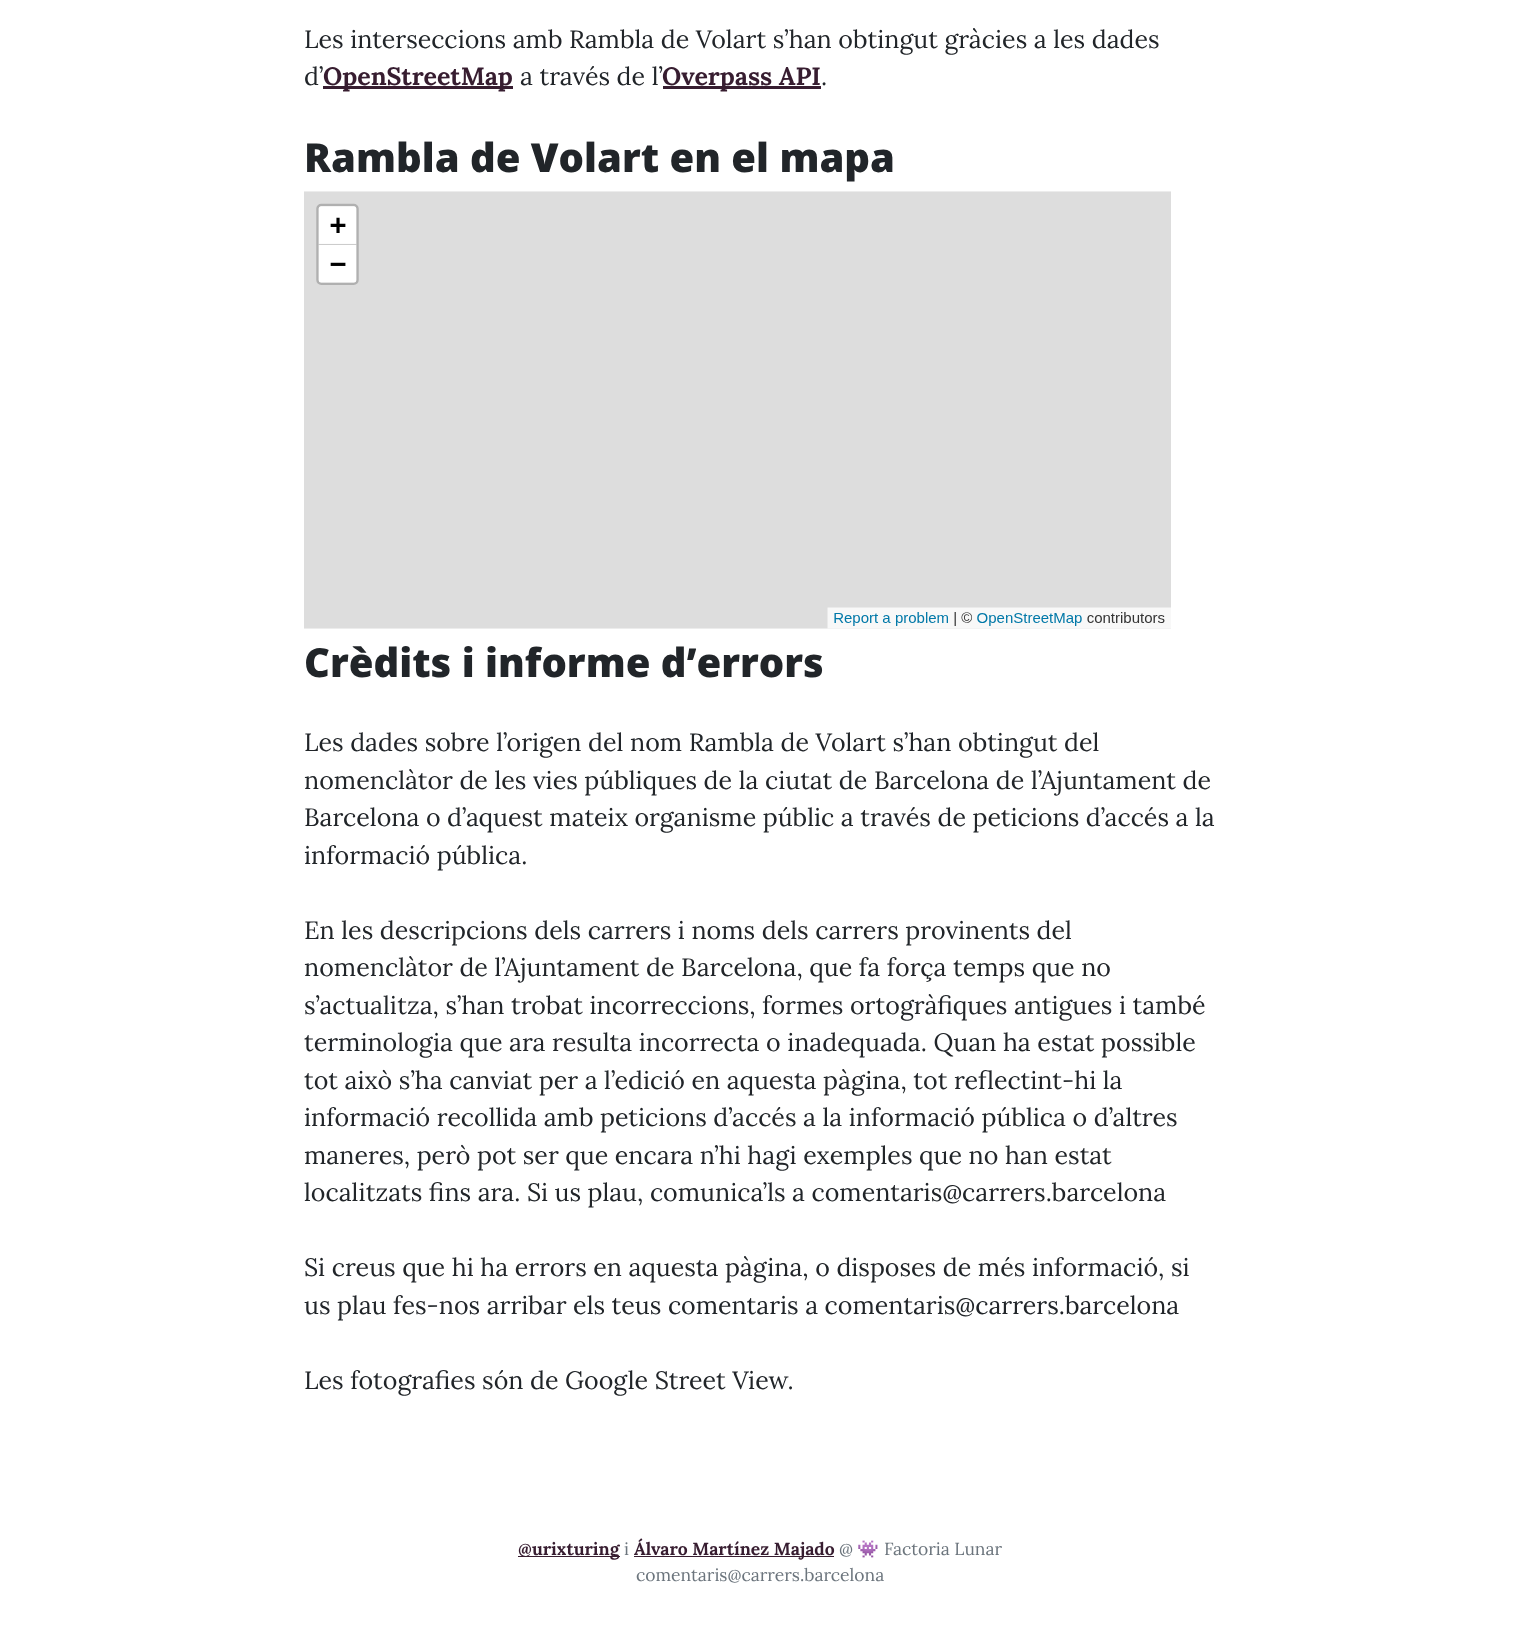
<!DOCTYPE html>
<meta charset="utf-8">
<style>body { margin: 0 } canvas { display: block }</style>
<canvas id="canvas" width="1520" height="1626"></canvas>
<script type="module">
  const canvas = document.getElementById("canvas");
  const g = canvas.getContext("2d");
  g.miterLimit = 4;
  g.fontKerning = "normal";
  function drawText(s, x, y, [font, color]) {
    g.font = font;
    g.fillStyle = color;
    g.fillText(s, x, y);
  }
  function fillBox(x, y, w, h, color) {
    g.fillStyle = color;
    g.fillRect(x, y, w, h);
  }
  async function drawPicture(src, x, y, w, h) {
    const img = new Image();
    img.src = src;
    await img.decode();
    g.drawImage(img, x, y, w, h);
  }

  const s1 = ["25px Lora", "#212529"];
  const s2 = ["bold 25px Lora", "#371D30"];
  const s3 = ["800 40px Open Sans", "#212529"];
  const s4 = ["bold 17.5px Lora", "#371D30"];
  const s5 = ["17.5px Lora", "#6C757D"];
  const s6 = ["17.5px Noto Color Emoji", "#6C757D"];

  fillBox(0, 0, 1520, 1626, "#FFFFFF");
  drawText("Les interseccions amb Rambla de Volart s’han obtingut gràcies a les dades", 304, 48, s1);
  drawText("d’", 304, 85, s1);
  fillBox(323, 86, 190, 3, "#371D30");
  drawText("OpenStreetMap", 323, 85, s2);
  drawText("a través de l’", 520, 85, s1);
  fillBox(663, 86, 158, 3, "#371D30");
  drawText("Overpass API", 662, 85, s2);
  drawText(".", 821, 85, s1);
  drawText("Rambla de Volart en el mapa", 304, 172, s3);
  await drawPicture("pic1.png", 304, 191, 867, 438);
  drawText("Crèdits i informe d’errors", 304, 677, s3);
  drawText("Les dades sobre l’origen del nom Rambla de Volart s’han obtingut del", 304, 751, s1);
  drawText("nomenclàtor de les vies públiques de la ciutat de Barcelona de l’Ajuntament de", 304, 789, s1);
  drawText("Barcelona o d’aquest mateix organisme públic a través de peticions d’accés a la", 304, 826, s1);
  drawText("informació pública.", 304, 864, s1);
  drawText("En les descripcions dels carrers i noms dels carrers provinents del", 304, 939, s1);
  drawText("nomenclàtor de l’Ajuntament de Barcelona, que fa força temps que no", 304, 976, s1);
  drawText("s’actualitza, s’han trobat incorreccions, formes ortogràfiques antigues i també", 304, 1014, s1);
  drawText("terminologia que ara resulta incorrecta o inadequada. Quan ha estat possible", 304, 1051, s1);
  drawText("tot això s’ha canviat per a l’edició en aquesta pàgina, tot reflectint-hi la", 304, 1089, s1);
  drawText("informació recollida amb peticions d’accés a la informació pública o d’altres", 304, 1126, s1);
  drawText("maneres, però pot ser que encara n’hi hagi exemples que no han estat", 304, 1164, s1);
  drawText("localitzats fins ara. Si us plau, comunica’ls a comentaris@carrers.barcelona", 304, 1201, s1);
  drawText("Si creus que hi ha errors en aquesta pàgina, o disposes de més informació, si", 304, 1276, s1);
  drawText("us plau fes-nos arribar els teus comentaris a comentaris@carrers.barcelona", 304, 1314, s1);
  drawText("Les fotografies són de Google Street View.", 304, 1389, s1);
  fillBox(518, 1556, 102, 1, "#371D30");
  drawText("@urixturing", 518, 1555, s4);
  drawText("i", 624, 1555, s5);
  fillBox(634, 1556, 200, 1, "#371D30");
  drawText("Álvaro Martínez Majado", 634, 1555, s4);
  drawText("@", 839, 1555, s5);
  drawText("👾", 857, 1555, s6);
  drawText("Factoria Lunar", 884, 1555, s5);
  drawText("comentaris@carrers.barcelona", 636, 1581, s5);
</script>
